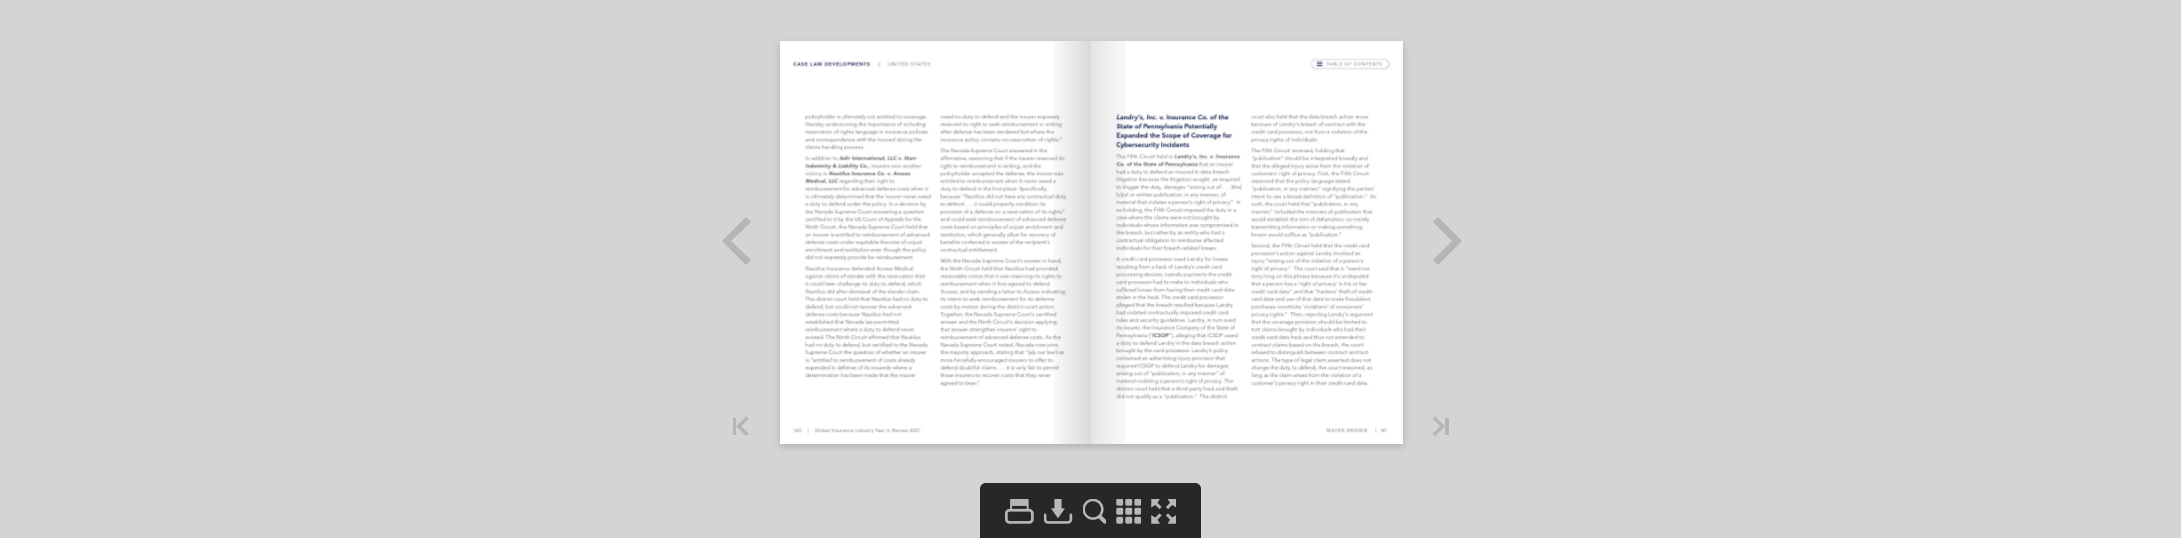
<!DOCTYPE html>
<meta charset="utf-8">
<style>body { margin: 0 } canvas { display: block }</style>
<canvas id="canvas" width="2181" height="538"></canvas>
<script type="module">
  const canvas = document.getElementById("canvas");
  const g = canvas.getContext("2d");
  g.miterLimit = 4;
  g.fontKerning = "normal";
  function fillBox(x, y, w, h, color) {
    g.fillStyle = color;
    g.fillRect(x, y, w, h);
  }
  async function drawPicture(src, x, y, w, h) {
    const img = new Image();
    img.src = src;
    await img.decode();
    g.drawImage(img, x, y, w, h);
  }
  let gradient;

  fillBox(0, 0, 2181, 538, "#D4D4D4");
  g.fillStyle = "#B5B5B5";
  g.beginPath();
  g.moveTo(722, 241);
  g.lineTo(746, 265);
  g.lineTo(751, 260);
  g.lineTo(731, 241);
  g.lineTo(751, 222);
  g.lineTo(746, 217);
  g.closePath();
  g.fill();
  g.fillStyle = "#AAAAAA";
  g.filter = "blur(3.5px)";
  g.beginPath();
  g.rect(780, 44, 623, 402);
  g.fill();
  g.filter = "none";
  fillBox(780, 41, 623, 403, "#FFFFFF");
  await drawPicture("pic1.png", 784, 61, 307, 384);
  gradient = g.createLinearGradient(1047, 242, 1091, 242);
  gradient.addColorStop(0, "rgba(0, 0, 0, 0)");
  gradient.addColorStop(1, "rgba(0, 0, 0, 0.15)");
  g.fillStyle = gradient;
  g.fillRect(1053, 41, 38, 403);
  await drawPicture("pic2.png", 1092, 58, 307, 387);
  gradient = g.createLinearGradient(1091, 242, 1136, 242);
  gradient.addColorStop(0, "rgba(0, 0, 0, 0.1)");
  gradient.addColorStop(1, "rgba(0, 0, 0, 0)");
  g.fillStyle = gradient;
  g.fillRect(1091, 41, 35, 403);
  g.fillStyle = "#B5B5B5";
  g.beginPath();
  g.moveTo(1462, 241);
  g.lineTo(1438, 265);
  g.lineTo(1433, 260);
  g.lineTo(1452, 241);
  g.lineTo(1433, 222);
  g.lineTo(1438, 217);
  g.closePath();
  g.fill();
  await drawPicture("pic3.png", 733, 416, 16, 20);
  await drawPicture("pic4.png", 1432, 416, 17, 20);
  g.fillStyle = "#272727";
  g.beginPath();
  g.moveTo(986, 483);
  g.lineTo(1195, 483);
  g.bezierCurveTo(1198.5, 483, 1201, 485.5, 1201, 489);
  g.lineTo(1201, 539);
  g.lineTo(980, 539);
  g.lineTo(980, 489);
  g.bezierCurveTo(980, 485.5, 982.5, 483, 986, 483);
  g.closePath();
  g.fill();
  await drawPicture("pic5.png", 1005, 499, 29, 25);
  await drawPicture("pic6.png", 1044, 499, 29, 25);
  await drawPicture("pic7.png", 1083, 499, 23, 25);
  await drawPicture("pic8.png", 1116, 499, 25, 25);
  await drawPicture("pic9.png", 1151, 499, 25, 25);
</script>
